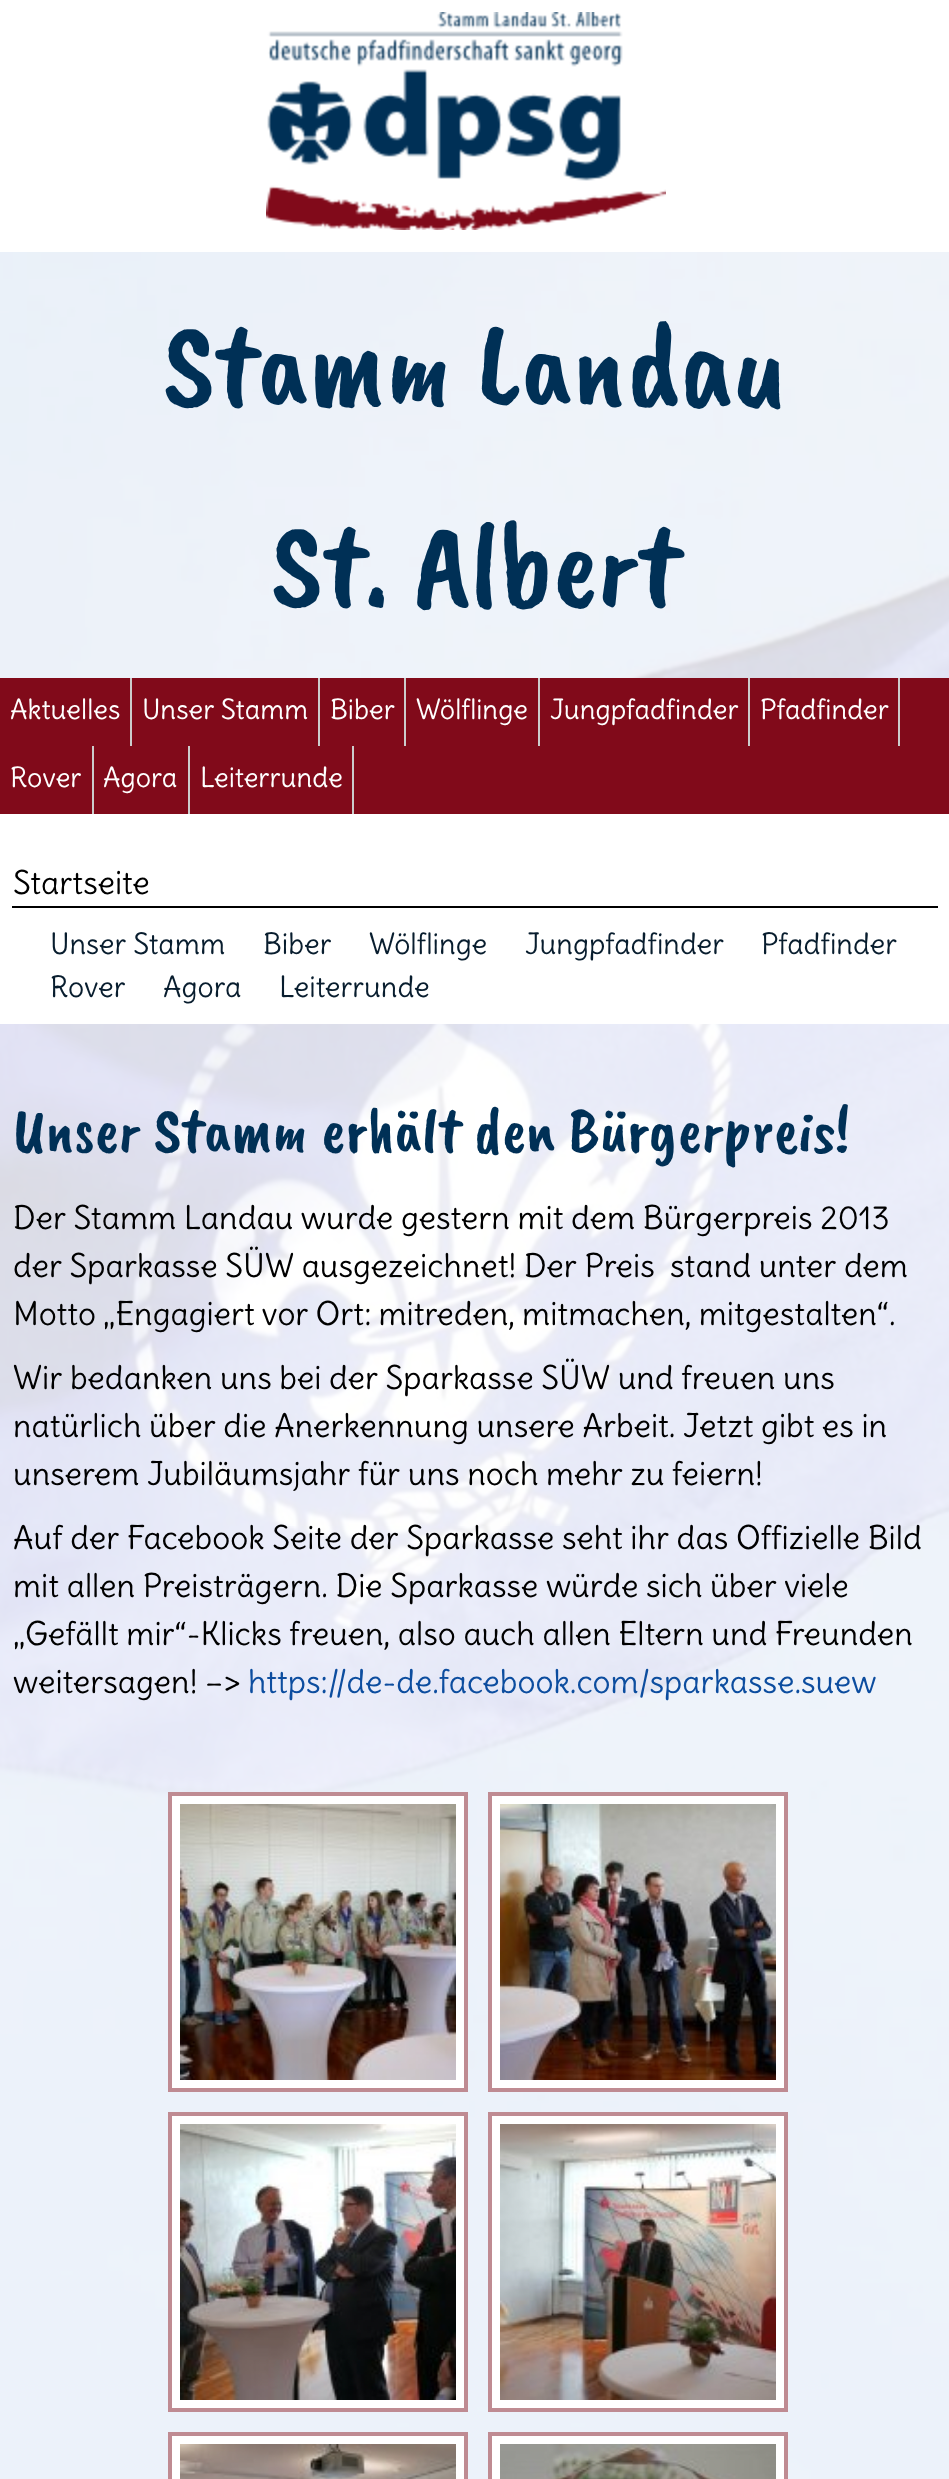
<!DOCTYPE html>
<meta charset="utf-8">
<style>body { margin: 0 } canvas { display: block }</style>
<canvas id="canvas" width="949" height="2479"></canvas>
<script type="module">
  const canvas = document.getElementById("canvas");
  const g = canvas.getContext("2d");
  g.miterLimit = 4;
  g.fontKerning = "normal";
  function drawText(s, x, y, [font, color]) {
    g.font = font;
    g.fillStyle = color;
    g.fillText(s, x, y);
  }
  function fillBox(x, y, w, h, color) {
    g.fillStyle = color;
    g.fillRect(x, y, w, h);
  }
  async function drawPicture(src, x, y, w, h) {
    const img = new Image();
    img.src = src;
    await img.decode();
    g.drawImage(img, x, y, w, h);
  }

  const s1 = ["120px Caveat Brush", "#003056"];
  const s2 = ["27.25px Delius", "#FFFFFF"];
  const s3 = ["32px Delius", "#000000"];
  const s4 = ["28.75px Delius", "#081D2E"];
  const s5 = ["64px Caveat Brush", "#003056"];
  const s6 = ["32px Delius", "#0C4D9F"];

  fillBox(0, 0, 949, 2479, "#FFFFFF");
  await drawPicture("pic1.png", 0, 252, 949, 2227);
  await drawPicture("pic2.png", 266, 12, 400, 218);
  fillBox(0, 252, 949, 426, "rgba(255, 255, 255, 0.85)");
  drawText("Stamm Landau", 163, 404, s1);
  drawText("St. Albert", 271, 604, s1);
  fillBox(0, 678, 949, 136, "#810A1A");
  fillBox(130, 678, 2, 68, "#CCCCCC");
  drawText("Aktuelles", 10, 719, s2);
  fillBox(318, 678, 2, 68, "#CCCCCC");
  drawText("Unser Stamm", 142, 719, s2);
  fillBox(404, 678, 2, 68, "#CCCCCC");
  drawText("Biber", 330, 719, s2);
  fillBox(538, 678, 2, 68, "#CCCCCC");
  drawText("Wölflinge", 416, 719, s2);
  fillBox(748, 678, 2, 68, "#CCCCCC");
  drawText("Jungpfadfinder", 550, 719, s2);
  fillBox(898, 678, 2, 68, "#CCCCCC");
  drawText("Pfadfinder", 760, 719, s2);
  fillBox(92, 746, 2, 68, "#CCCCCC");
  drawText("Rover", 10, 787, s2);
  fillBox(188, 746, 2, 68, "#CCCCCC");
  drawText("Agora", 103, 787, s2);
  fillBox(352, 746, 2, 68, "#CCCCCC");
  drawText("Leiterrunde", 200, 787, s2);
  fillBox(0, 814, 949, 210, "#FFFFFF");
  fillBox(12, 906, 926, 2, "#000000");
  drawText("Startseite", 13, 894, s3);
  drawText("Unser Stamm", 50, 954, s4);
  drawText("Biber", 263, 954, s4);
  drawText("Wölflinge", 369, 954, s4);
  drawText("Jungpfadfinder", 525, 954, s4);
  drawText("Pfadfinder", 761, 954, s4);
  drawText("Rover", 50, 997, s4);
  drawText("Agora", 163, 997, s4);
  drawText("Leiterrunde", 279, 997, s4);
  fillBox(0, 1024, 949, 1455, "rgba(255, 255, 255, 0.85)");
  drawText("Unser Stamm erhält den Bürgerpreis!", 13, 1151, s5);
  drawText("Der Stamm Landau wurde gestern mit dem Bürgerpreis 2013", 13, 1229, s3);
  drawText("der Sparkasse SÜW ausgezeichnet! Der Preis  stand unter dem", 13, 1277, s3);
  drawText("Motto", 13, 1325, s3);
  g.wordSpacing = "-0.5px";
  drawText("„Engagiert vor Ort: mitreden, mitmachen, mitgestalten“", 103, 1325, s3);
  g.wordSpacing = "0px";
  drawText(".", 889, 1325, s3);
  drawText("Wir bedanken uns bei der Sparkasse SÜW und freuen uns", 13, 1389, s3);
  drawText("natürlich über die Anerkennung unsere Arbeit. Jetzt gibt es in", 13, 1437, s3);
  drawText("unserem Jubiläumsjahr für uns noch mehr zu feiern!", 13, 1485, s3);
  drawText("Auf der Facebook Seite der Sparkasse seht ihr das Offizielle Bild", 13, 1549, s3);
  drawText("mit allen Preisträgern. Die Sparkasse würde sich über viele", 13, 1597, s3);
  drawText("„Gefällt mir“-Klicks freuen, also auch allen Eltern und Freunden", 13, 1645, s3);
  drawText("weitersagen! –>", 13, 1693, s3);
  drawText("https://de-de.facebook.com/sparkasse.suew", 248, 1693, s6);
  g.fillStyle = "#FFFFFF";
  g.beginPath();
  g.rect(170, 1794, 296, 296);
  g.fill();
  g.strokeStyle = "#BF8B92";
  g.lineWidth = 4;
  g.stroke();
  await drawPicture("pic3.png", 180, 1804, 276, 276);
  g.beginPath();
  g.rect(490, 1794, 296, 296);
  g.fill();
  g.stroke();
  await drawPicture("pic4.png", 500, 1804, 276, 276);
  g.beginPath();
  g.rect(170, 2114, 296, 296);
  g.fill();
  g.stroke();
  await drawPicture("pic5.png", 180, 2124, 276, 276);
  g.beginPath();
  g.rect(490, 2114, 296, 296);
  g.fill();
  g.stroke();
  await drawPicture("pic6.png", 500, 2124, 276, 276);
  g.beginPath();
  g.rect(170, 2434, 296, 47);
  g.fill();
  g.stroke();
  await drawPicture("pic7.png", 180, 2444, 276, 35);
  g.beginPath();
  g.rect(490, 2434, 296, 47);
  g.fill();
  g.stroke();
  await drawPicture("pic8.png", 500, 2444, 276, 35);
</script>
